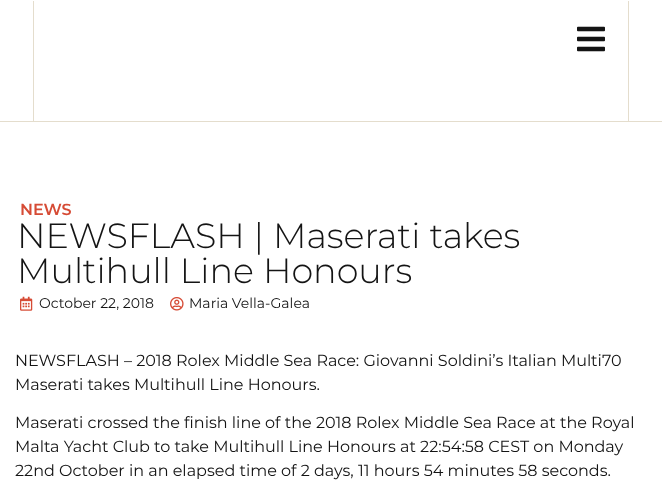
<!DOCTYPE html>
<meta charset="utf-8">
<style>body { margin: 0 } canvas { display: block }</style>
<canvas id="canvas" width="662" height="483"></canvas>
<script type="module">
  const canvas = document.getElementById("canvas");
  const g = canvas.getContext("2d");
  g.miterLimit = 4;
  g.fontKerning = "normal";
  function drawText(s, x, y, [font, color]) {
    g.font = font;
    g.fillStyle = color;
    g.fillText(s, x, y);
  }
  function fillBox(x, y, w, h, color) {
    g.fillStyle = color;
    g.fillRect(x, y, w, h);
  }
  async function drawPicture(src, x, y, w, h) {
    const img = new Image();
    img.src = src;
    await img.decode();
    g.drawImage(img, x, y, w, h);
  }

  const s1 = ["600 16px Montserrat", "#D64B35"];
  const s2 = ["300 35px Montserrat", "#141414"];
  const s3 = ["14px Montserrat", "#141414"];
  const s4 = ["16px Montserrat", "#141414"];

  fillBox(0, 0, 662, 483, "#FFFFFF");
  await drawPicture("pic1.png", 577, 26, 28, 26);
  fillBox(0, 121, 662, 1, "#E4DDCD");
  fillBox(628, 1, 1, 120, "#E4DDCD");
  fillBox(33, 1, 1, 120, "#E4DDCD");
  drawText("NEWS", 20, 215, s1);
  drawText("NEWSFLASH | Maserati takes", 17, 248, s2);
  drawText("Multihull Line Honours", 17, 283, s2);
  await drawPicture("pic2.png", 20, 296, 13, 15);
  drawText("October 22, 2018", 39, 308, s3);
  await drawPicture("pic3.png", 170, 297, 14, 14);
  drawText("Maria Vella-Galea", 189, 308, s3);
  drawText("NEWSFLASH – 2018 Rolex Middle Sea Race: Giovanni Soldini’s Italian Multi70", 15, 366, s4);
  drawText("Maserati takes Multihull Line Honours.", 15, 390, s4);
  drawText("Maserati crossed the finish line of the 2018 Rolex Middle Sea Race at the Royal", 15, 428, s4);
  drawText("Malta Yacht Club to take Multihull Line Honours at 22:54:58 CEST on Monday", 15, 452, s4);
  drawText("22nd October in an elapsed time of 2 days, 11 hours 54 minutes 58 seconds.", 15, 476, s4);
</script>
